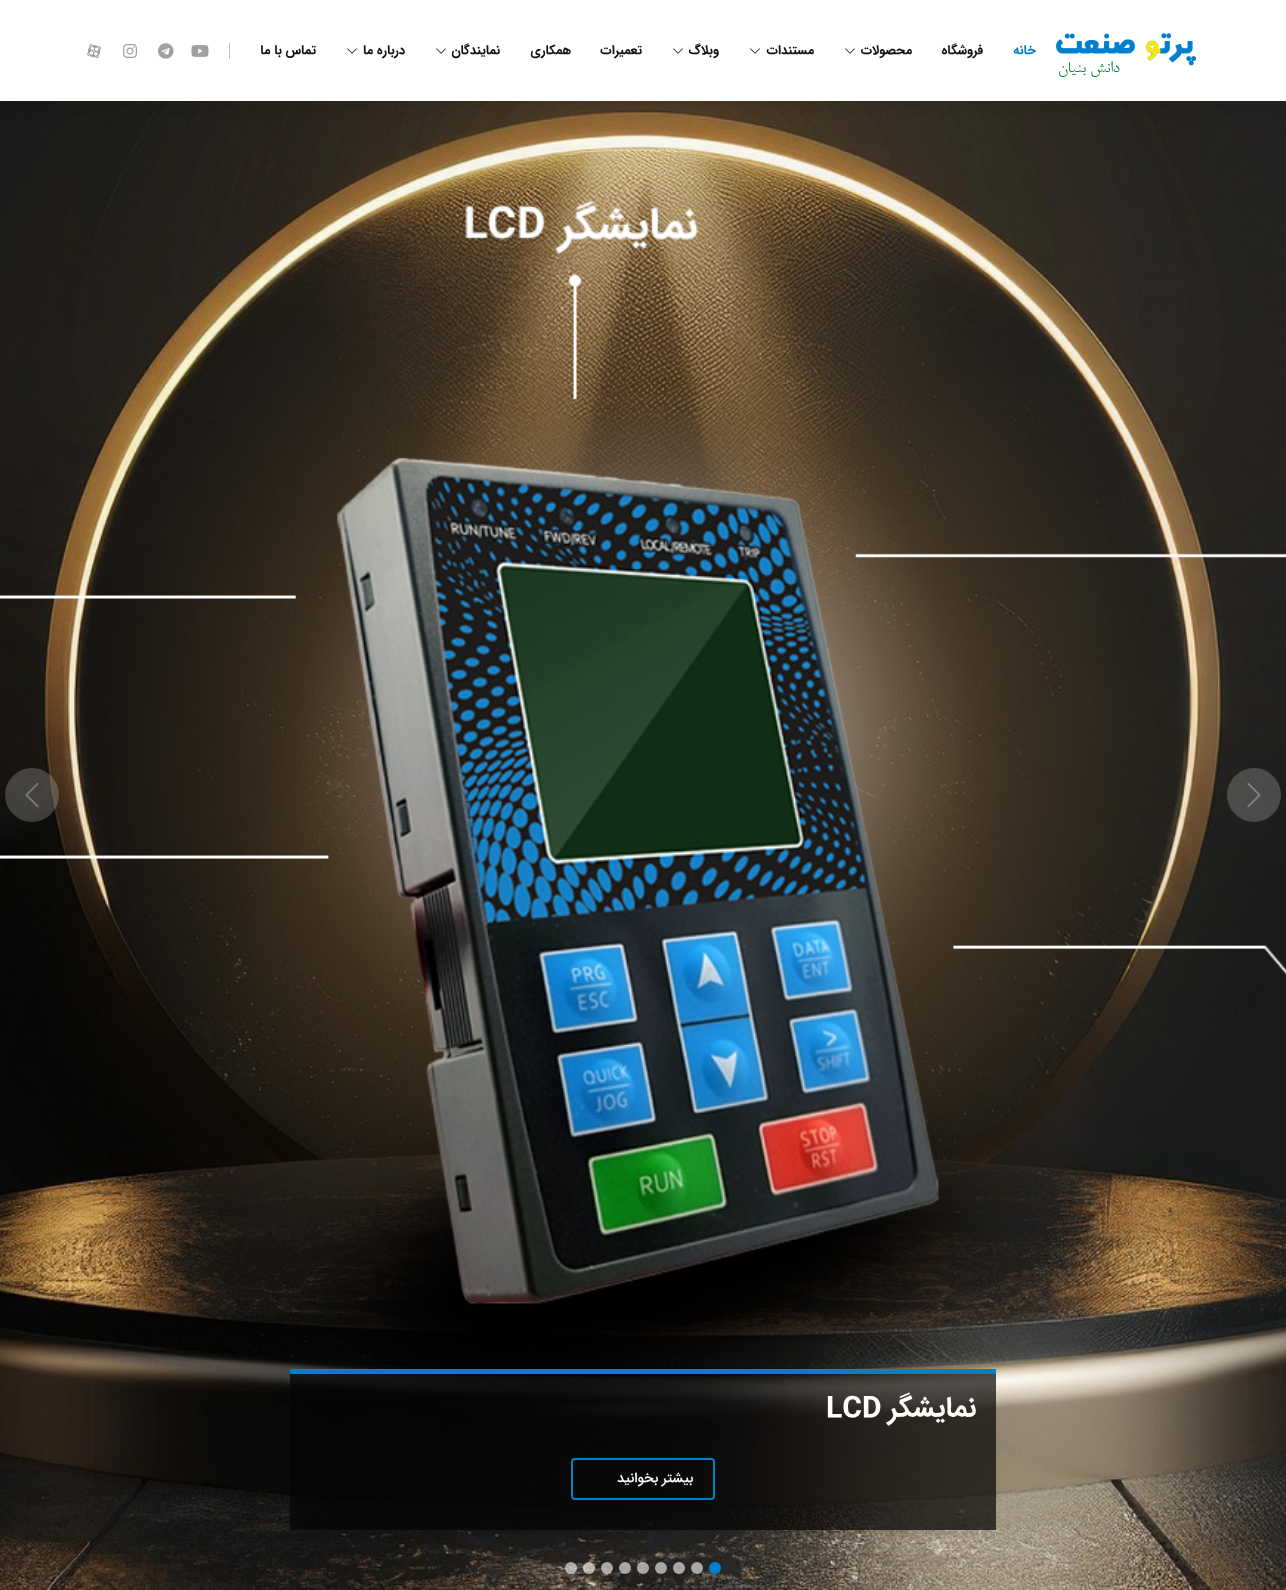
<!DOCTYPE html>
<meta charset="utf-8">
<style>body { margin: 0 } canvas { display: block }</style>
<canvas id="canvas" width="1286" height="1590"></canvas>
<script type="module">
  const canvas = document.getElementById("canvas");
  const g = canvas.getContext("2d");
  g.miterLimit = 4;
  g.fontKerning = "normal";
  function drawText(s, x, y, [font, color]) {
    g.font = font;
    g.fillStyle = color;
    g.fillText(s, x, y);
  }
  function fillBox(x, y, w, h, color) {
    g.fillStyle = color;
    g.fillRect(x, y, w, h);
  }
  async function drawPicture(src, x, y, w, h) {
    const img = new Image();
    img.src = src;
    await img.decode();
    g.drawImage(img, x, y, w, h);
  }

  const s1 = ["bold 13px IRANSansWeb", "#017FCC"];
  const s2 = ["bold 13px IRANSansWeb", "#111111"];
  const s3 = ["bold 28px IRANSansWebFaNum", "#FFFFFF"];
  const s4 = ["500 14px IRANSansWebFaNum", "#FFFFFF"];

  fillBox(0, 0, 1286, 1590, "#FFFFFF");
  await drawPicture("pic9.png", 0, 101, 1286, 1489);
  g.fillStyle = "rgba(0, 0, 0, 0.1)";
  g.filter = "blur(7.5px)";
  g.beginPath();
  g.rect(0, 2, 1286, 101);
  g.fill();
  g.filter = "none";
  fillBox(0, 0, 1286, 101, "#FFFFFF");
  await drawPicture("pic1.png", 1056, 33, 140, 44);
  g.direction = "rtl";
  drawText("خانه", 1036, 54, s1);
  drawText("فروشگاه", 983, 54, s2);
  drawText("محصولات", 912, 54, s2);
  await drawPicture("pic2.png", 845, 48, 10, 6);
  drawText("مستندات", 814, 54, s2);
  await drawPicture("pic2.png", 750, 48, 10, 6);
  drawText("وبلاگ", 719, 54, s2);
  await drawPicture("pic2.png", 673, 48, 10, 6);
  drawText("تعمیرات", 642, 54, s2);
  drawText("همکاری", 571, 54, s2);
  drawText("نمایندگان", 500, 54, s2);
  await drawPicture("pic2.png", 436, 48, 10, 6);
  drawText("درباره ما", 405, 54, s2);
  await drawPicture("pic2.png", 347, 48, 10, 6);
  drawText("تماس با ما", 316, 54, s2);
  fillBox(229, 43, 1, 16, "#C4C4C4");
  await drawPicture("pic3.png", 191, 45, 18, 12);
  await drawPicture("pic4.png", 158, 43, 16, 16);
  await drawPicture("pic5.png", 123, 44, 14, 14);
  await drawPicture("pic6.png", 87, 44, 14, 15);
  g.fillStyle = "rgba(255, 255, 255, 0.2)";
  g.beginPath();
  g.arc(1254, 795, 27, 0, Math.PI * 2);
  g.fill();
  await drawPicture("pic7.png", 1247, 782, 14, 26);
  g.beginPath();
  g.arc(32, 795, 27, 0, Math.PI * 2);
  g.fill();
  await drawPicture("pic8.png", 25, 782, 14, 26);
  fillBox(290, 1374, 706, 156, "rgba(4, 4, 4, 0.7)");
  fillBox(290, 1369, 706, 5, "#017FCC");
  drawText("نمایشگر", 976, 1416, s3);
  g.direction = "ltr";
  drawText("LCD", 826, 1416, s3);
  g.beginPath();
  g.roundRect(572, 1459, 142, 40, 3);
  g.strokeStyle = "#017FCC";
  g.lineWidth = 2;
  g.stroke();
  g.letterSpacing = "1px";
  g.wordSpacing = "-1px";
  g.direction = "rtl";
  drawText("بیشتر بخوانید", 693, 1482, s4);
  g.fillStyle = "#017FCC";
  g.beginPath();
  g.arc(715, 1568, 6, 0, Math.PI * 2);
  g.fill();
  g.fillStyle = "rgba(255, 255, 255, 0.6)";
  g.beginPath();
  g.arc(697, 1568, 6, 0, Math.PI * 2);
  g.fill();
  g.beginPath();
  g.arc(679, 1568, 6, 0, Math.PI * 2);
  g.fill();
  g.beginPath();
  g.arc(661, 1568, 6, 0, Math.PI * 2);
  g.fill();
  g.beginPath();
  g.arc(643, 1568, 6, 0, Math.PI * 2);
  g.fill();
  g.beginPath();
  g.arc(625, 1568, 6, 0, Math.PI * 2);
  g.fill();
  g.beginPath();
  g.arc(607, 1568, 6, 0, Math.PI * 2);
  g.fill();
  g.beginPath();
  g.arc(589, 1568, 6, 0, Math.PI * 2);
  g.fill();
  g.beginPath();
  g.arc(571, 1568, 6, 0, Math.PI * 2);
  g.fill();
</script>
